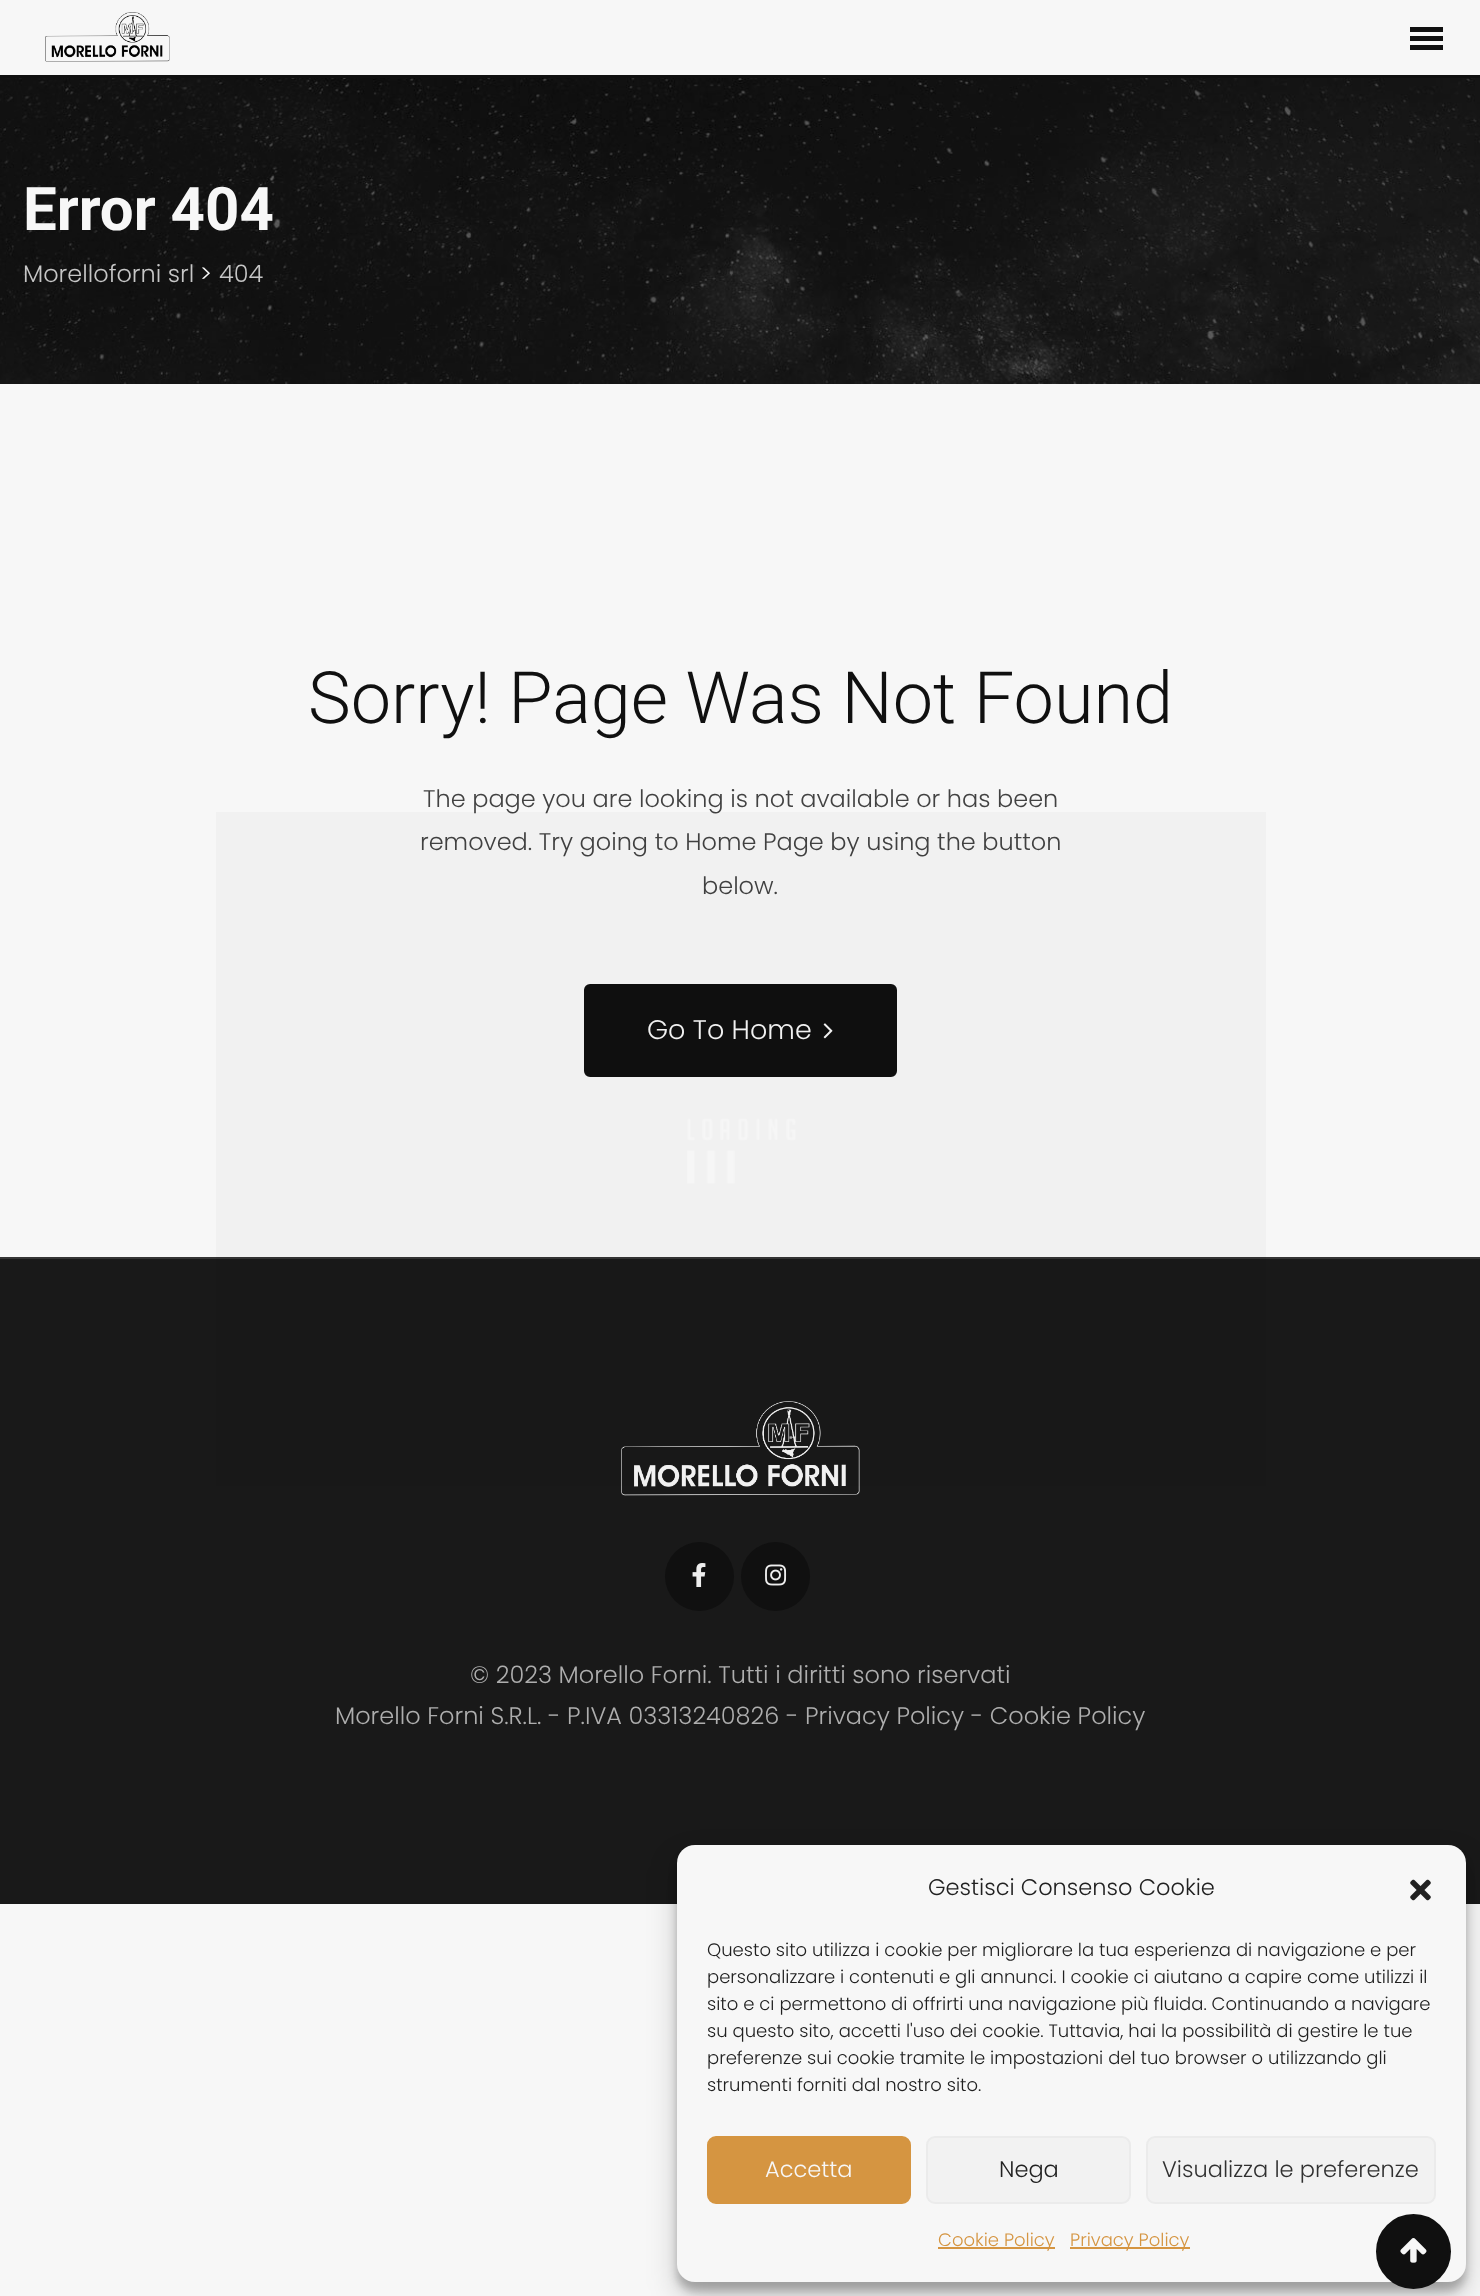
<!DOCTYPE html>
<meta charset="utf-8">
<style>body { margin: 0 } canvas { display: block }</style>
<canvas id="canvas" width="1480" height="2296"></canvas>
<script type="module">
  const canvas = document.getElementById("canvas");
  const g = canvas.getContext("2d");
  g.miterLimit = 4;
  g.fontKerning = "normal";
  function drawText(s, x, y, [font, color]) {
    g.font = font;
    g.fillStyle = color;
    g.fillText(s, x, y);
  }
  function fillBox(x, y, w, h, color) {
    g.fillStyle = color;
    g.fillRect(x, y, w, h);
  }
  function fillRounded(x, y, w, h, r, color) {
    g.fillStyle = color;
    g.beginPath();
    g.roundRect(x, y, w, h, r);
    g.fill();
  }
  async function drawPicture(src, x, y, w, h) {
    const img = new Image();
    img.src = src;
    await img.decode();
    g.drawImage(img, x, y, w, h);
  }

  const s1 = ["bold 60px Roboto", "#F7F7F7"];
  const s2 = ["300 24px Poppins", "#C6C6C6"];
  const s3 = ["300 24px Poppins", "#F7F7F7"];
  const s4 = ["300 72px Roboto", "#101010"];
  const s5 = ["300 24px Poppins", "#424242"];
  const s6 = ["300 27px Poppins", "#F7F7F7"];
  const s7 = ["300 24px Poppins", "#AEAEAE"];
  const s8 = ["300 22.5px Poppins", "#212121"];
  const s9 = ["300 18px Poppins", "#212121"];
  const s10 = ["300 22.5px Poppins", "#F7F7F7"];
  const s11 = ["300 22.5px Poppins", "#313131"];
  const s12 = ["300 18px Poppins", "#D59541"];

  fillBox(0, 0, 1480, 2296, "#F7F7F7");
  fillBox(0, 75, 1480, 3, "#101010");
  await drawPicture("pic1.png", 45, 12, 125, 50);
  fillBox(1410, 27, 33, 5, "#101010");
  fillBox(1410, 36, 33, 5, "#101010");
  fillBox(1410, 45, 33, 5, "#101010");
  await drawPicture("pic2.png", 0, 78, 1480, 306);
  drawText("Error 404", 23, 230, s1);
  drawText("Morelloforni srl", 23, 282, s2);
  drawText(">", 200, 282, s3);
  drawText("404", 219, 282, s2);
  drawText("Sorry! Page Was Not Found", 308, 723, s4);
  drawText("The page you are looking is not available or has been", 423, 807, s5);
  drawText("removed. Try going to Home Page by using the button", 420, 850, s5);
  drawText("below.", 702, 894, s5);
  g.fillStyle = "#101010";
  g.beginPath();
  g.roundRect(585.5, 985.5, 310, 90, 4.5);
  g.fill();
  g.strokeStyle = "#101010";
  g.lineWidth = 3;
  g.stroke();
  drawText("Go To Home", 647, 1039, s6);
  await drawPicture("pic3.png", 823, 1023, 10, 16);
  fillBox(0, 1259, 1480, 645, "#191919");
  fillBox(0, 1257, 1480, 2, "#353535");
  await drawPicture("pic4.png", 621, 1401, 239, 95);
  g.fillStyle = "#101010";
  g.beginPath();
  g.arc(699.5, 1576.5, 34.5, 0, Math.PI * 2);
  g.fill();
  await drawPicture("pic5.png", 692, 1563, 14, 24);
  g.beginPath();
  g.arc(775.5, 1576.5, 34.5, 0, Math.PI * 2);
  g.fill();
  await drawPicture("pic6.png", 765, 1564, 22, 22);
  drawText("© 2023 Morello Forni. Tutti i diritti sono riservati", 470, 1683, s7);
  drawText("Morello Forni S.R.L. - P.IVA 03313240826 - Privacy Policy - Cookie Policy", 335, 1724, s7);
  await drawPicture("pic7.png", 216, 812, 1050, 674);
  g.fillStyle = "rgba(0, 0, 0, 0.23)";
  g.filter = "blur(4.5px)";
  g.beginPath();
  g.roundRect(677, 1854, 789, 437, 18);
  g.fill();
  g.filter = "none";
  g.fillStyle = "rgba(0, 0, 0, 0.19)";
  g.filter = "blur(15px)";
  g.beginPath();
  g.roundRect(677, 1860, 789, 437, 18);
  g.fill();
  g.filter = "none";
  fillRounded(677, 1845, 789, 437, 18, "#F7F7F7");
  drawText("Gestisci Consenso Cookie", 928, 1895, s8);
  await drawPicture("pic8.png", 1410, 1879, 21, 22);
  drawText("Questo sito utilizza i cookie per migliorare la tua esperienza di navigazione e per", 707, 1956, s9);
  drawText("personalizzare i contenuti e gli annunci. I cookie ci aiutano a capire come utilizzi il", 707, 1983, s9);
  drawText("sito e ci permettono di offrirti una navigazione più fluida. Continuando a navigare", 707, 2010, s9);
  drawText("su questo sito, accetti l'uso dei cookie. Tuttavia, hai la possibilità di gestire le tue", 707, 2037, s9);
  drawText("preferenze sui cookie tramite le impostazioni del tuo browser o utilizzando gli", 707, 2064, s9);
  drawText("strumenti forniti dal nostro sito.", 707, 2091, s9);
  g.fillStyle = "#D59541";
  g.beginPath();
  g.roundRect(708, 2137, 202, 66, 8);
  g.fill();
  g.strokeStyle = "#D59541";
  g.lineWidth = 2;
  g.stroke();
  drawText("Accetta", 765, 2177, s10);
  g.fillStyle = "#F2F2F2";
  g.beginPath();
  g.roundRect(927, 2137, 203, 66, 8);
  g.fill();
  g.strokeStyle = "#EBEBEB";
  g.stroke();
  drawText("Nega", 999, 2177, s8);
  g.fillStyle = "#F2F2F2";
  g.beginPath();
  g.roundRect(1147, 2137, 288, 66, 8);
  g.fill();
  g.stroke();
  drawText("Visualizza le preferenze", 1162, 2177, s11);
  fillBox(938, 2247, 117, 2, "#D59541");
  drawText("Cookie Policy", 938, 2246, s12);
  fillBox(1070, 2247, 120, 2, "#D59541");
  drawText("Privacy Policy", 1070, 2246, s12);
  g.fillStyle = "#101010";
  g.beginPath();
  g.arc(1413.5, 2251.5, 36, 0, Math.PI * 2);
  g.fill();
  g.strokeStyle = "#101010";
  g.lineWidth = 3;
  g.stroke();
  await drawPicture("pic9.png", 1400, 2238, 27, 25);
</script>
